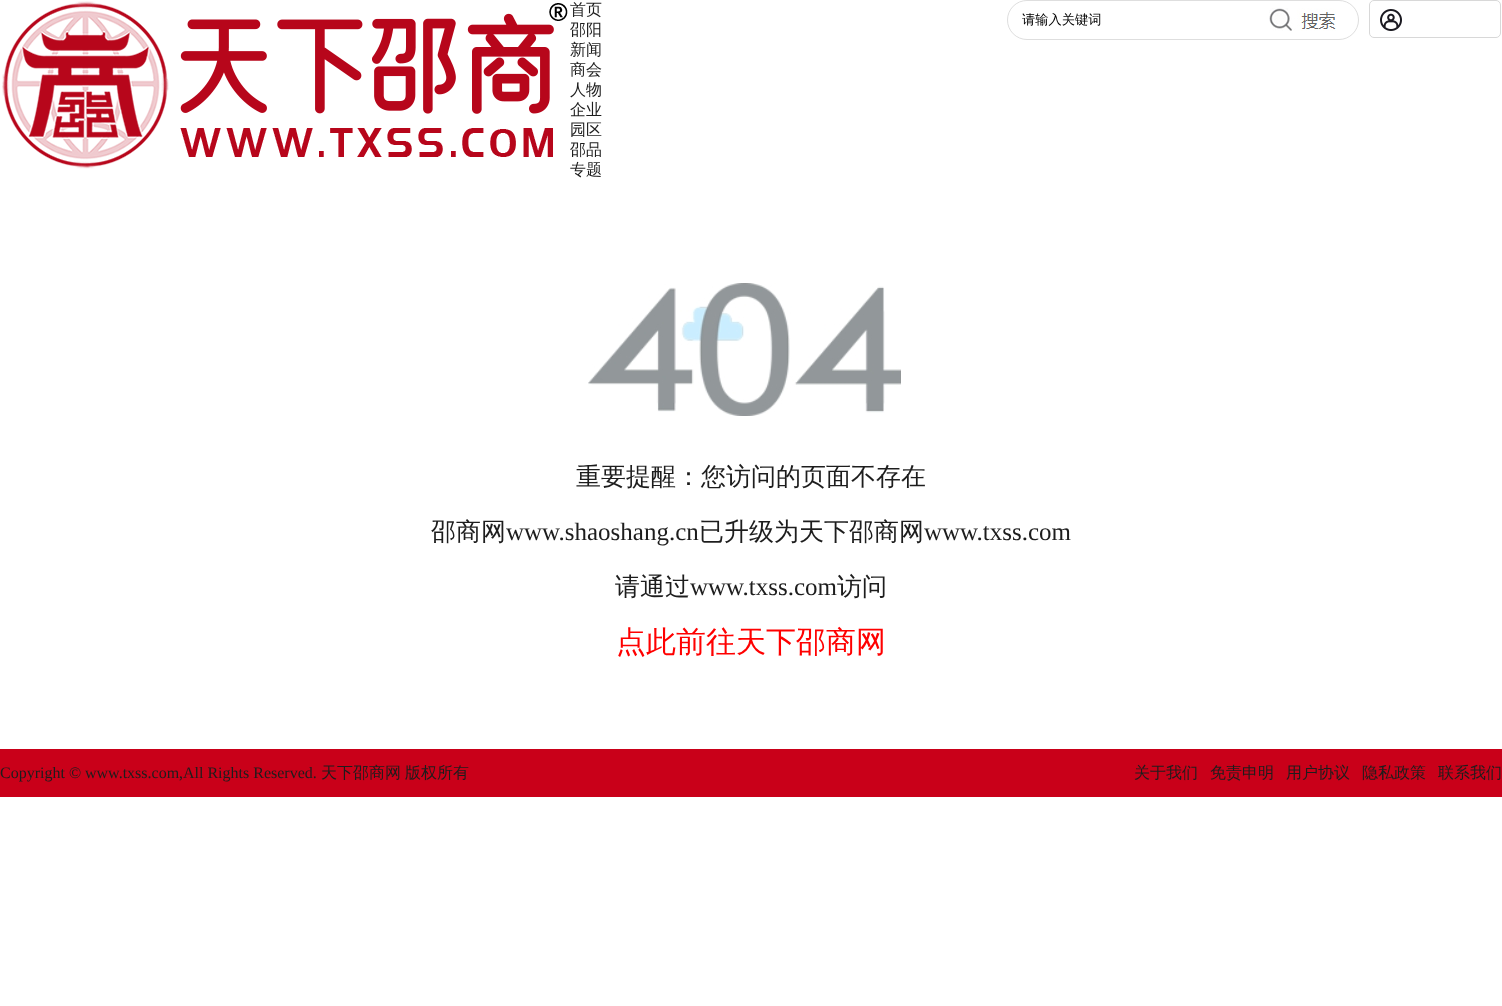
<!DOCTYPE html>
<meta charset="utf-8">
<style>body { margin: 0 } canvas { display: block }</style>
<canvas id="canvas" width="1502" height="1006"></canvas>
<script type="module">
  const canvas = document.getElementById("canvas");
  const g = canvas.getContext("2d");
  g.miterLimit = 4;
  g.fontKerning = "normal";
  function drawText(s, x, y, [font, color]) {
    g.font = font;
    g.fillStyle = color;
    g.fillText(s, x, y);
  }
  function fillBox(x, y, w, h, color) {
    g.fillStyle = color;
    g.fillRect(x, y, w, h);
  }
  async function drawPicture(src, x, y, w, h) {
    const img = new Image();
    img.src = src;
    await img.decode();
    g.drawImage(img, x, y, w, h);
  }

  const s1 = ["500 16px WenQuanYi Zen Hei", "#1D1D1D"];
  const s2 = ["500 13.25px WenQuanYi Zen Hei", "#000000"];
  const s3 = ["500 25px WenQuanYi Zen Hei", "#1D1D1D"];
  const s4 = ["25px Liberation Serif", "#1D1D1D"];
  const s5 = ["500 30px WenQuanYi Zen Hei", "#FF0000"];
  const s6 = ["16px Liberation Serif", "#1D1D1D"];

  fillBox(0, 0, 1502, 1006, "#FFFFFF");
  await drawPicture("pic1.png", 2, 1, 566, 168);
  drawText("首页", 570, 15, s1);
  drawText("邵阳", 570, 35, s1);
  drawText("新闻", 570, 55, s1);
  drawText("商会", 570, 75, s1);
  drawText("人物", 570, 95, s1);
  drawText("企业", 570, 115, s1);
  drawText("园区", 570, 135, s1);
  drawText("邵品", 570, 155, s1);
  drawText("专题", 570, 175, s1);
  g.beginPath();
  g.roundRect(1007.5, 0.5, 351, 39, 19.5);
  g.strokeStyle = "#DEDEDE";
  g.stroke();
  drawText("请输入关键词", 1022, 24, s2);
  await drawPicture("pic2.png", 1269, 8, 67, 23);
  await drawPicture("pic3.png", 1380, 9, 22, 22);
  g.beginPath();
  g.roundRect(1369.5, 0.5, 131, 37, 4.5);
  g.strokeStyle = "#D8D8D8";
  g.stroke();
  await drawPicture("pic4.png", 588, 283, 313, 133);
  drawText("重要提醒：您访问的页面不存在", 576, 485, s3);
  drawText("邵商网", 431, 540, s3);
  drawText("www.shaoshang.cn", 506, 540, s4);
  drawText("已升级为", 699, 540, s3);
  drawText("天下邵商网", 799, 540, s3);
  drawText("www.txss.com", 924, 540, s4);
  drawText("请通过", 615, 595, s3);
  drawText("www.txss.com", 690, 595, s4);
  drawText("访问", 837, 595, s3);
  drawText("点此前往天下邵商网", 616, 652, s5);
  fillBox(0, 749, 1502, 48, "#C90019");
  drawText("Copyright ©", 0, 778, s6);
  drawText("www.txss.com", 85, 778, s6);
  drawText(",All Rights Reserved.", 179, 778, s6);
  drawText("天下邵商网", 321, 778, s1);
  drawText("版权所有", 405, 778, s1);
  drawText("关于我们", 1134, 778, s1);
  drawText("免责申明", 1210, 778, s1);
  drawText("用户协议", 1286, 778, s1);
  drawText("隐私政策", 1362, 778, s1);
  drawText("联系我们", 1438, 778, s1);
</script>
